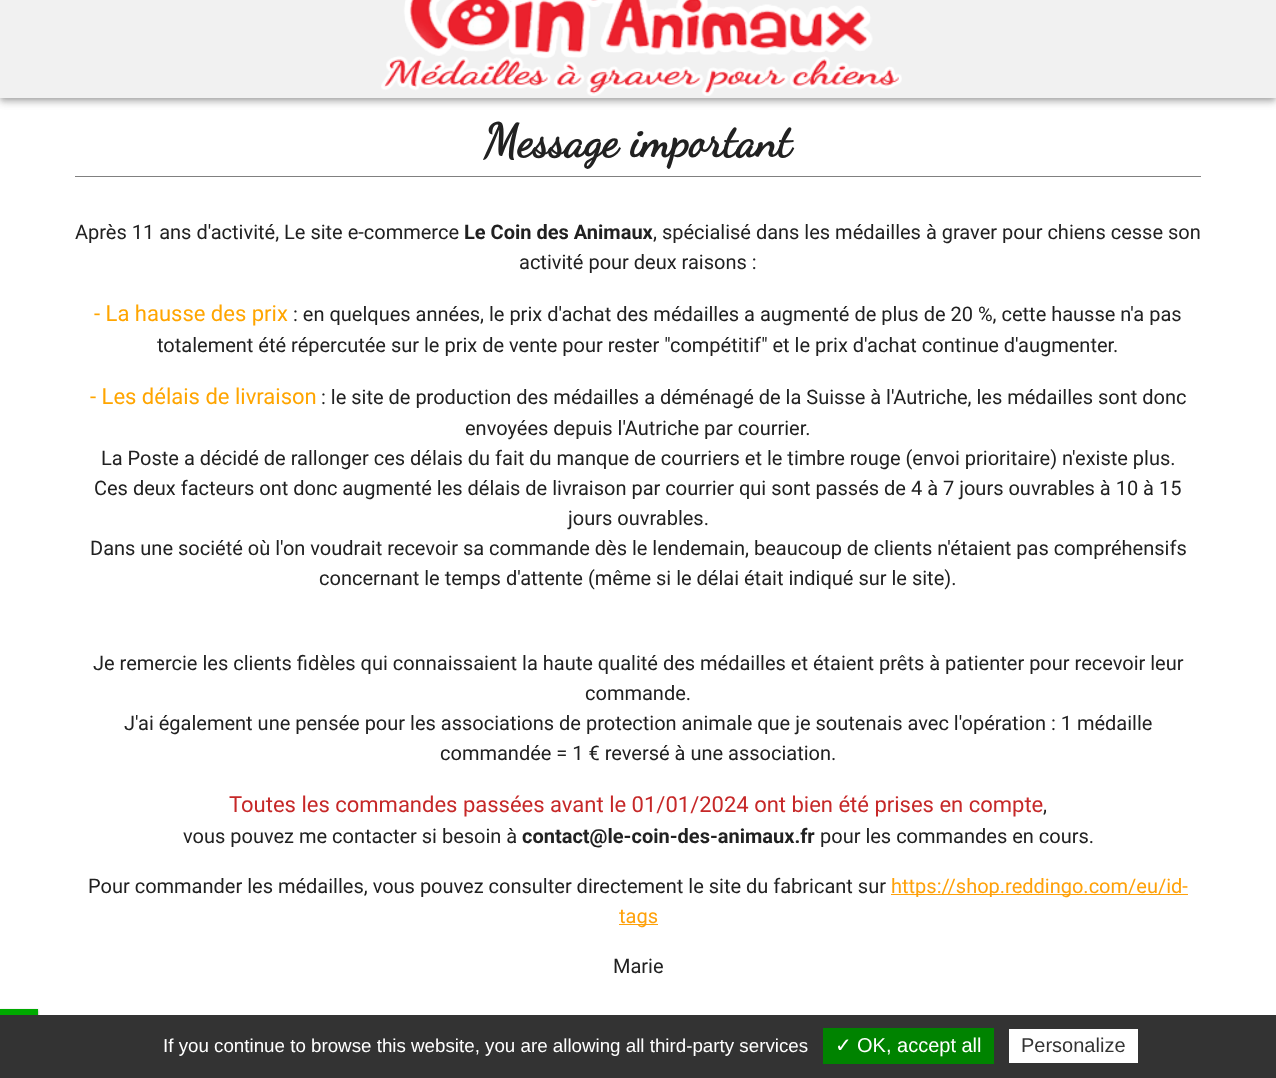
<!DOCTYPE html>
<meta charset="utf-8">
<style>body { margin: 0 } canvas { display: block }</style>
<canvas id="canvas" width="1276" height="1078"></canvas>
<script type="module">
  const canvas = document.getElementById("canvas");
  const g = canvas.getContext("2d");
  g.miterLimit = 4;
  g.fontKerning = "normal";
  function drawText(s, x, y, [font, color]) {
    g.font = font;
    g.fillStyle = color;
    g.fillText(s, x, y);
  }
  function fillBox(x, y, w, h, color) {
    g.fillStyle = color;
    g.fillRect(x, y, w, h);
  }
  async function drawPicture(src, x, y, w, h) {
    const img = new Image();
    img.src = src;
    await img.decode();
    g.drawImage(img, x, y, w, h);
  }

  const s1 = ["bold 46px Dancing Script", "#212121"];
  const s2 = ["20px Roboto", "#212121"];
  const s3 = ["bold 20px Roboto", "#212121"];
  const s4 = ["22px Roboto", "#FFA500"];
  const s5 = ["22px Roboto", "#C62828"];
  const s6 = ["20px Roboto", "#FFA109"];
  const s7 = ["18.75px Liberation Sans", "#FFFFFF"];
  const s8 = ["20px DejaVu Sans", "#FFFFFF"];
  const s9 = ["20px Liberation Sans", "#FFFFFF"];
  const s10 = ["20px Liberation Sans", "#333333"];

  fillBox(0, 0, 1276, 1078, "#FFFFFF");
  g.fillStyle = "rgba(0, 0, 0, 0.12)";
  g.filter = "blur(6px)";
  g.beginPath();
  g.rect(0, -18, 1276, 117);
  g.fill();
  g.filter = "none";
  g.fillStyle = "rgba(0, 0, 0, 0.14)";
  g.filter = "blur(3px)";
  g.beginPath();
  g.rect(0, -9, 1276, 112);
  g.fill();
  g.filter = "none";
  g.fillStyle = "rgba(0, 0, 0, 0.2)";
  g.filter = "blur(2.5px)";
  g.beginPath();
  g.rect(1, -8, 1274, 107);
  g.fill();
  g.filter = "none";
  fillBox(0, 0, 1276, 98, "#F1F1F1");
  await drawPicture("pic1.png", 381, 0, 521, 96);
  fillBox(75, 176, 1126, 1, "#808080");
  drawText("Message important", 484, 156, s1);
  drawText("Après 11 ans d'activité, Le site e-commerce", 75, 239, s2);
  drawText("Le Coin des Animaux", 464, 239, s3);
  drawText(", spécialisé dans les médailles à graver pour chiens cesse son", 653, 239, s2);
  drawText("activité pour deux raisons :", 519, 269, s2);
  drawText("- La hausse des prix", 94, 321, s4);
  drawText(": en quelques années, le prix d'achat des médailles a augmenté de plus de 20 %, cette hausse n'a pas", 293, 321, s2);
  drawText("totalement été répercutée sur le prix de vente pour rester \"compétitif\" et le prix d'achat continue d'augmenter.", 157, 352, s2);
  drawText("- Les délais de livraison", 90, 404, s4);
  drawText(": le site de production des médailles a déménagé de la Suisse à l'Autriche, les médailles sont donc", 321, 404, s2);
  drawText("envoyées depuis l'Autriche par courrier.", 465, 435, s2);
  drawText("La Poste a décidé de rallonger ces délais du fait du manque de courriers et le timbre rouge (envoi prioritaire) n'existe plus.", 101, 465, s2);
  drawText("Ces deux facteurs ont donc augmenté les délais de livraison par courrier qui sont passés de 4 à 7 jours ouvrables à 10 à 15", 94, 495, s2);
  drawText("jours ouvrables.", 568, 525, s2);
  drawText("Dans une société où l'on voudrait recevoir sa commande dès le lendemain, beaucoup de clients n'étaient pas compréhensifs", 90, 555, s2);
  drawText("concernant le temps d'attente (même si le délai était indiqué sur le site).", 319, 585, s2);
  drawText("Je remercie les clients fidèles qui connaissaient la haute qualité des médailles et étaient prêts à patienter pour recevoir leur", 93, 670, s2);
  drawText("commande.", 585, 700, s2);
  drawText("J'ai également une pensée pour les associations de protection animale que je soutenais avec l'opération : 1 médaille", 124, 730, s2);
  drawText("commandée = 1 € reversé à une association.", 440, 760, s2);
  drawText("Toutes les commandes passées avant le 01/01/2024 ont bien été prises en compte", 229, 812, s5);
  drawText(",", 1043, 812, s2);
  drawText("vous pouvez me contacter si besoin à", 183, 843, s2);
  drawText("contact@le-coin-des-animaux.fr", 522, 843, s3);
  drawText("pour les commandes en cours.", 820, 843, s2);
  drawText("Pour commander les médailles, vous pouvez consulter directement le site du fabricant sur", 88, 893, s2);
  fillBox(891, 894, 297, 1, "#FFA109");
  drawText("https://shop.reddingo.com/eu/id-", 891, 893, s6);
  fillBox(619, 924, 39, 1, "#FFA109");
  drawText("tags", 619, 923, s6);
  drawText("Marie", 613, 973, s2);
  g.fillStyle = "#555555";
  g.filter = "blur(1px)";
  g.beginPath();
  g.rect(0, 1010, 38, 6);
  g.fill();
  g.filter = "none";
  g.fillStyle = "#FFFFFF";
  g.filter = "blur(1px)";
  g.beginPath();
  g.rect(0, 1009, 38, 6);
  g.fill();
  g.filter = "none";
  fillBox(0, 1009, 38, 6, "#00AA00");
  fillBox(0, 1015, 1276, 63, "#333333");
  drawText("If you continue to browse this website, you are allowing all third-party services", 163, 1052, s7);
  fillBox(823, 1028, 171, 36, "#008300");
  drawText("✓", 835, 1052, s8);
  drawText("OK, accept all", 857, 1052, s9);
  fillBox(1009, 1029, 129, 34, "#FFFFFF");
  drawText("Personalize", 1021, 1052, s10);
</script>
